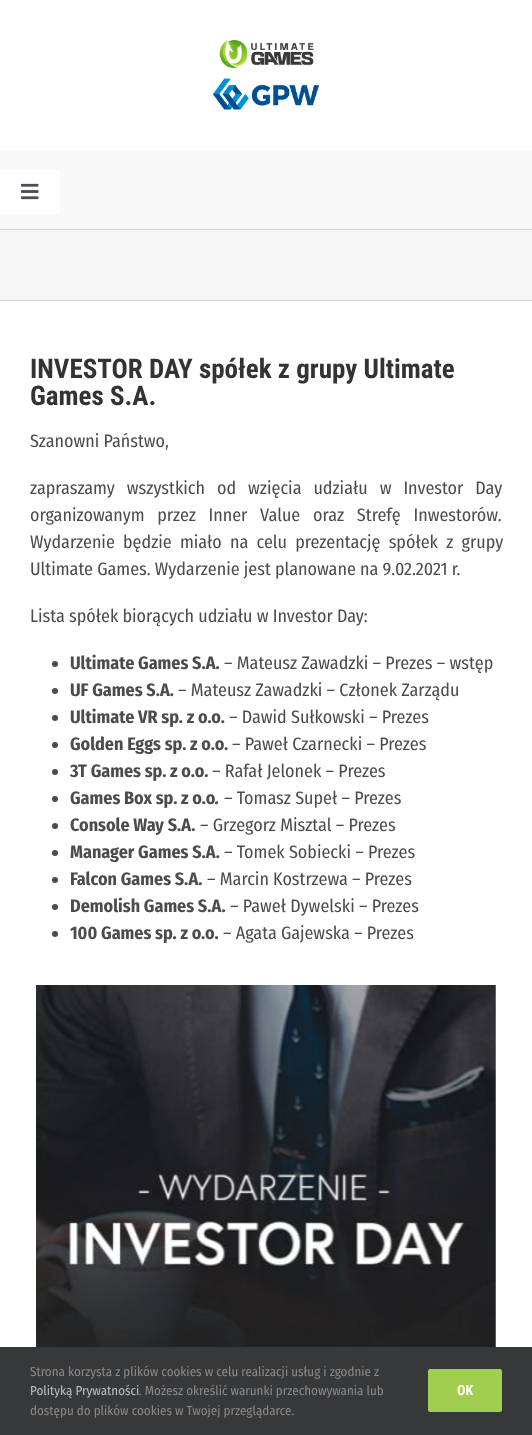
<!DOCTYPE html>
<meta charset="utf-8">
<style>body { margin: 0 } canvas { display: block }</style>
<canvas id="canvas" width="532" height="1435"></canvas>
<script type="module">
  const canvas = document.getElementById("canvas");
  const g = canvas.getContext("2d");
  g.miterLimit = 4;
  g.fontKerning = "normal";
  function drawText(s, x, y, [font, color]) {
    g.font = font;
    g.fillStyle = color;
    g.fillText(s, x, y);
  }
  function fillBox(x, y, w, h, color) {
    g.fillStyle = color;
    g.fillRect(x, y, w, h);
  }
  function fillRounded(x, y, w, h, r, color) {
    g.fillStyle = color;
    g.beginPath();
    g.roundRect(x, y, w, h, r);
    g.fill();
  }
  async function drawPicture(src, x, y, w, h) {
    const img = new Image();
    img.src = src;
    await img.decode();
    g.drawImage(img, x, y, w, h);
  }

  const s1 = ["bold 27px Roboto Condensed", "#333333"];
  const s2 = ["18px Fira Sans Condensed", "#4C4C4C"];
  const s3 = ["bold 18px Fira Sans Condensed", "#4C4C4C"];
  const s4 = ["italic bold 18px Fira Sans Condensed", "#4C4C4C"];
  const s5 = ["13px Fira Sans Condensed", "#8C8989"];
  const s6 = ["13px Fira Sans Condensed", "#BFBFBF"];
  const s7 = ["bold 14px Roboto Condensed", "#FFFFFF"];

  fillBox(0, 0, 532, 1435, "#FFFFFF");
  await drawPicture("pic1.png", 219, 40, 95, 28);
  await drawPicture("pic2.png", 213, 78, 106, 32);
  fillBox(0, 150, 532, 79, "#F9F9F9");
  fillBox(0, 170, 60, 44, "#FFFFFF");
  await drawPicture("pic3.png", 21, 183, 18, 17);
  fillBox(0, 230, 532, 70, "#F6F6F6");
  fillBox(0, 229, 532, 1, "#D2D3D4");
  fillBox(0, 300, 532, 1, "#D2D3D4");
  drawText("INVESTOR DAY spółek z grupy Ultimate", 30, 378, s1);
  drawText("Games S.A.", 30, 405, s1);
  drawText("Szanowni Państwo,", 30, 447, s2);
  g.wordSpacing = "7.75px";
  drawText("zapraszamy wszystkich od wzięcia udziału w Investor Day", 30, 494, s2);
  g.wordSpacing = "8.5px";
  drawText("organizowanym przez Inner Value oraz Strefę Inwestorów.", 30, 521, s2);
  g.wordSpacing = "4px";
  drawText("Wydarzenie będzie miało na celu prezentację spółek z grupy", 30, 548, s2);
  g.wordSpacing = "0px";
  drawText("Ultimate Games. Wydarzenie jest planowane na 9.02.2021 r.", 30, 575, s2);
  drawText("Lista spółek biorących udziału w Investor Day:", 30, 622, s2);
  g.beginPath();
  g.arc(55, 664, 3, 0, Math.PI * 2);
  g.fill();
  drawText("Ultimate Games S.A.", 70, 669, s3);
  drawText("– Mateusz Zawadzki – Prezes – wstęp", 224, 669, s2);
  g.beginPath();
  g.arc(55, 691, 3, 0, Math.PI * 2);
  g.fill();
  drawText("UF Games S.A.", 70, 696, s3);
  drawText("– Mateusz Zawadzki – Członek Zarządu", 178, 696, s2);
  g.beginPath();
  g.arc(55, 718, 3, 0, Math.PI * 2);
  g.fill();
  drawText("Ultimate VR sp. z o.o.", 70, 723, s3);
  drawText("– Dawid Sułkowski – Prezes", 229, 723, s2);
  g.beginPath();
  g.arc(55, 745, 3, 0, Math.PI * 2);
  g.fill();
  drawText("Golden Eggs sp. z o.o.", 70, 750, s3);
  drawText("– Paweł Czarnecki – Prezes", 232, 750, s2);
  g.beginPath();
  g.arc(55, 772, 3, 0, Math.PI * 2);
  g.fill();
  drawText("3T Games sp. z o.o.", 70, 777, s3);
  drawText("– Rafał Jelonek – Prezes", 212, 777, s2);
  g.beginPath();
  g.arc(55, 799, 3, 0, Math.PI * 2);
  g.fill();
  drawText("Games Box sp. z o.o", 70, 804, s3);
  drawText("– Tomasz Supeł – Prezes", 224, 804, s2);
  drawText(".", 215, 804, s4);
  g.beginPath();
  g.arc(55, 826, 3, 0, Math.PI * 2);
  g.fill();
  drawText("Console Way S.A.", 70, 831, s3);
  drawText("– Grzegorz Misztal – Prezes", 200, 831, s2);
  g.beginPath();
  g.arc(55, 853, 3, 0, Math.PI * 2);
  g.fill();
  drawText("Manager Games S.A.", 70, 858, s3);
  drawText("– Tomek Sobiecki – Prezes", 224, 858, s2);
  g.beginPath();
  g.arc(55, 880, 3, 0, Math.PI * 2);
  g.fill();
  drawText("Falcon Games S.A.", 70, 885, s3);
  drawText("– Marcin Kostrzewa – Prezes", 207, 885, s2);
  g.beginPath();
  g.arc(55, 907, 3, 0, Math.PI * 2);
  g.fill();
  drawText("Demolish Games S.A.", 70, 912, s3);
  drawText("– Paweł Dywelski – Prezes", 230, 912, s2);
  g.beginPath();
  g.arc(55, 934, 3, 0, Math.PI * 2);
  g.fill();
  drawText("100 Games sp. z o.o.", 70, 939, s3);
  drawText("– Agata Gajewska – Prezes", 223, 939, s2);
  await drawPicture("pic4.png", 36, 985, 460, 362);
  fillBox(0, 1347, 532, 88, "#363839");
  drawText("Strona korzysta z plików cookies w celu realizacji usług i zgodnie z", 30, 1376, s5);
  drawText("Polityką Prywatności", 30, 1395, s6);
  drawText(". Możesz określić warunki przechowywania lub", 139, 1395, s5);
  drawText("dostępu do plików cookies w Twojej przeglądarce.", 30, 1415, s5);
  fillRounded(428, 1369, 74, 43, 2, "#A0CE4E");
  drawText("OK", 457, 1395, s7);
</script>
